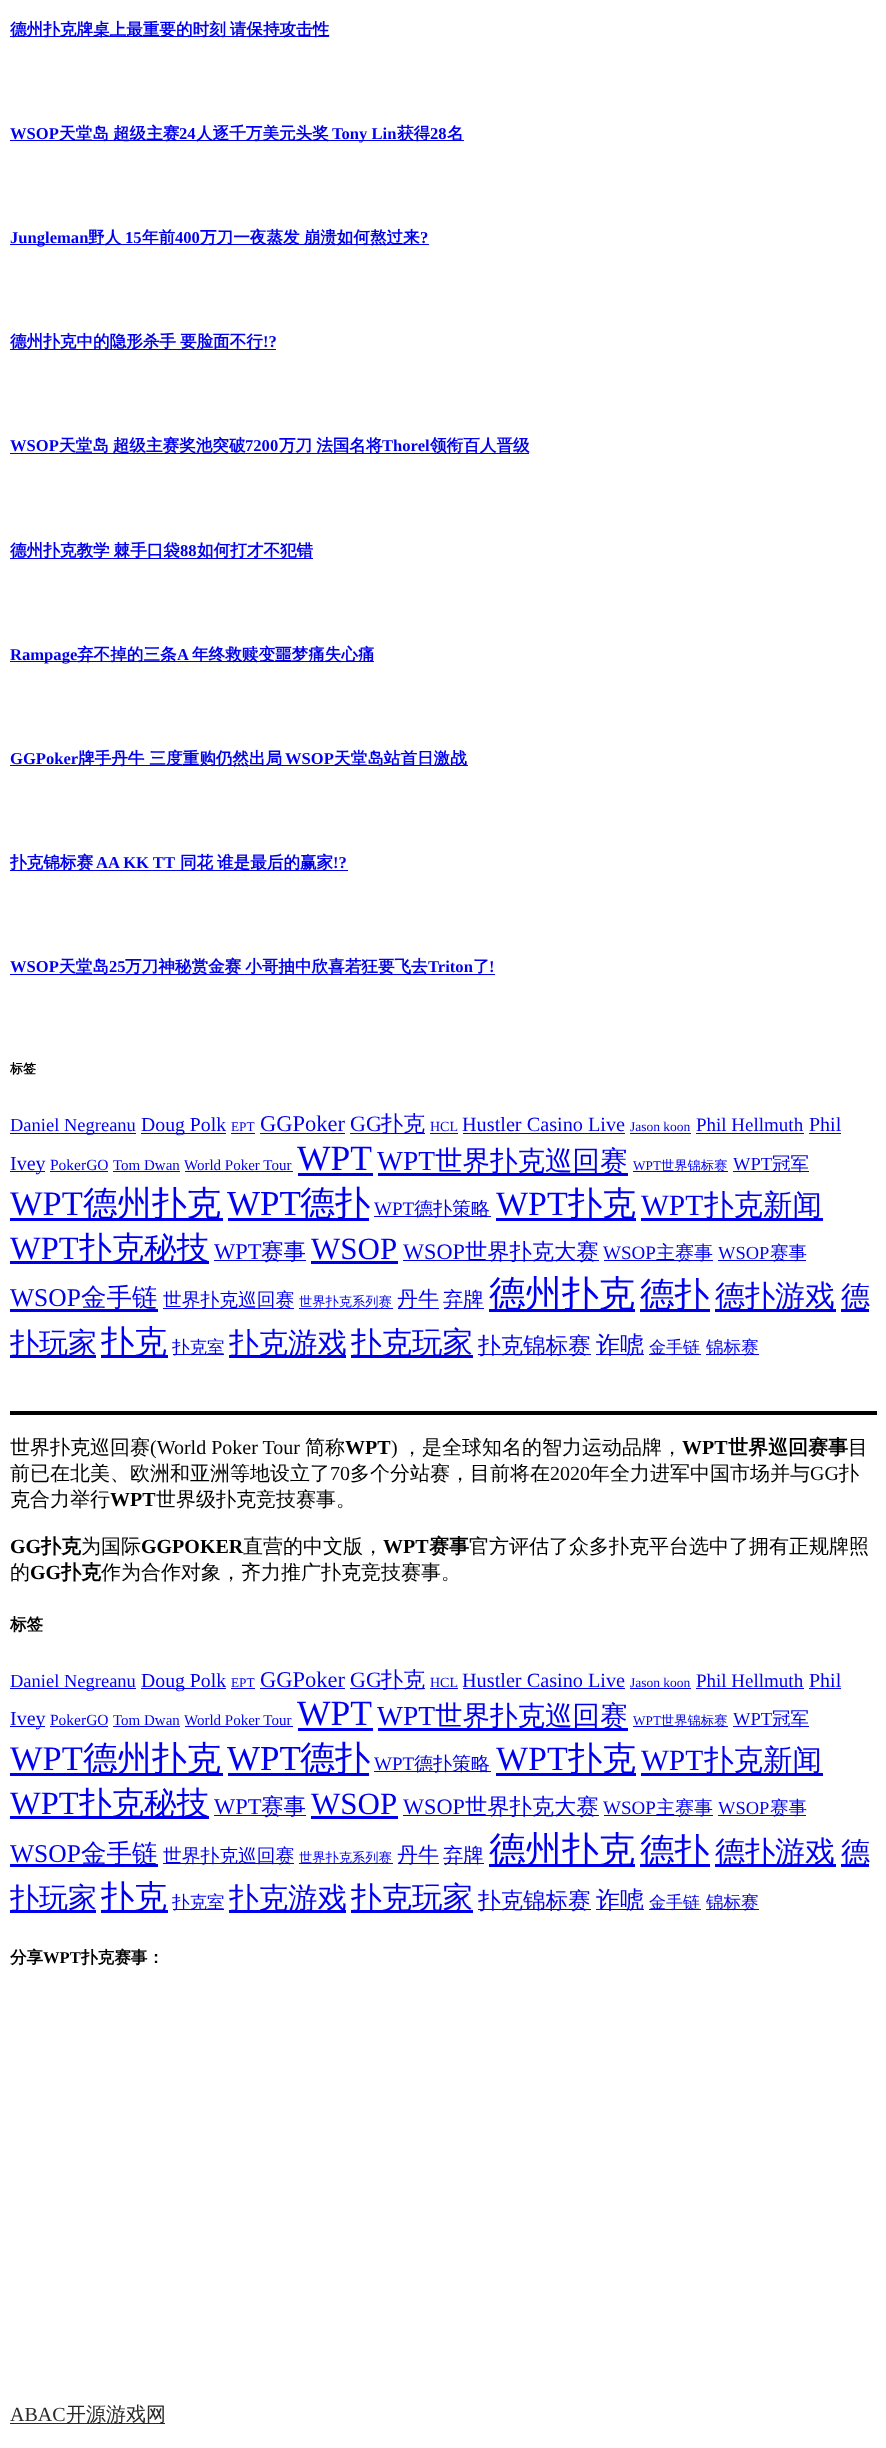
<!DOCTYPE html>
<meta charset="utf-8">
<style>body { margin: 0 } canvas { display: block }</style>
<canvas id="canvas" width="886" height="2448"></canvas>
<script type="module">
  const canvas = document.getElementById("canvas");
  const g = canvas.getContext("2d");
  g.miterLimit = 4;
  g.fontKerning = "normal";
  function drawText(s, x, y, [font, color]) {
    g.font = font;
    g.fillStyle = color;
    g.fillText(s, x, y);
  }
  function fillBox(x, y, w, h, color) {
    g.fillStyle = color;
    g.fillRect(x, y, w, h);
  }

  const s1 = ["bold 16.6px WenQuanYi Zen Hei", "#0000EE"];
  const s2 = ["bold 16.6px Liberation Serif", "#0000EE"];
  const s3 = ["bold 13px WenQuanYi Zen Hei", "#000000"];
  const s4 = ["18.5px Liberation Serif", "#0000EE"];
  const s5 = ["19.75px Liberation Serif", "#0000EE"];
  const s6 = ["13.25px Liberation Serif", "#0000EE"];
  const s7 = ["22.5px Liberation Serif", "#0000EE"];
  const s8 = ["22px Liberation Serif", "#0000EE"];
  const s9 = ["500 22px WenQuanYi Zen Hei", "#0000EE"];
  const s10 = ["14px Liberation Serif", "#0000EE"];
  const s11 = ["20.25px Liberation Serif", "#0000EE"];
  const s12 = ["13.5px Liberation Serif", "#0000EE"];
  const s13 = ["19px Liberation Serif", "#0000EE"];
  const s14 = ["20px Liberation Serif", "#0000EE"];
  const s15 = ["15.5px Liberation Serif", "#0000EE"];
  const s16 = ["15px Liberation Serif", "#0000EE"];
  const s17 = ["35.5px Liberation Serif", "#0000EE"];
  const s18 = ["27.5px Liberation Serif", "#0000EE"];
  const s19 = ["500 27.5px WenQuanYi Zen Hei", "#0000EE"];
  const s20 = ["500 13.25px WenQuanYi Zen Hei", "#0000EE"];
  const s21 = ["500 18.5px WenQuanYi Zen Hei", "#0000EE"];
  const s22 = ["34.5px Liberation Serif", "#0000EE"];
  const s23 = ["500 34.5px WenQuanYi Zen Hei", "#0000EE"];
  const s24 = ["35px Liberation Serif", "#0000EE"];
  const s25 = ["500 35px WenQuanYi Zen Hei", "#0000EE"];
  const s26 = ["500 19px WenQuanYi Zen Hei", "#0000EE"];
  const s27 = ["34px Liberation Serif", "#0000EE"];
  const s28 = ["500 34px WenQuanYi Zen Hei", "#0000EE"];
  const s29 = ["29.5px Liberation Serif", "#0000EE"];
  const s30 = ["500 29.5px WenQuanYi Zen Hei", "#0000EE"];
  const s31 = ["32.5px Liberation Serif", "#0000EE"];
  const s32 = ["500 32.5px WenQuanYi Zen Hei", "#0000EE"];
  const s33 = ["500 22.5px WenQuanYi Zen Hei", "#0000EE"];
  const s34 = ["31px Liberation Serif", "#0000EE"];
  const s35 = ["22.25px Liberation Serif", "#0000EE"];
  const s36 = ["500 22.25px WenQuanYi Zen Hei", "#0000EE"];
  const s37 = ["25.5px Liberation Serif", "#0000EE"];
  const s38 = ["500 25.5px WenQuanYi Zen Hei", "#0000EE"];
  const s39 = ["500 18.75px WenQuanYi Zen Hei", "#0000EE"];
  const s40 = ["500 21px WenQuanYi Zen Hei", "#0000EE"];
  const s41 = ["500 20.25px WenQuanYi Zen Hei", "#0000EE"];
  const s42 = ["500 36.5px WenQuanYi Zen Hei", "#0000EE"];
  const s43 = ["500 30px WenQuanYi Zen Hei", "#0000EE"];
  const s44 = ["500 29px WenQuanYi Zen Hei", "#0000EE"];
  const s45 = ["500 33px WenQuanYi Zen Hei", "#0000EE"];
  const s46 = ["500 17.5px WenQuanYi Zen Hei", "#0000EE"];
  const s47 = ["500 30.5px WenQuanYi Zen Hei", "#0000EE"];
  const s48 = ["500 24px WenQuanYi Zen Hei", "#0000EE"];
  const s49 = ["500 17px WenQuanYi Zen Hei", "#0000EE"];
  const s50 = ["500 20px WenQuanYi Zen Hei", "#000000"];
  const s51 = ["20px Liberation Serif", "#000000"];
  const s52 = ["bold 20px Liberation Serif", "#000000"];
  const s53 = ["bold 20px WenQuanYi Zen Hei", "#000000"];
  const s54 = ["bold 16.6px WenQuanYi Zen Hei", "#000000"];
  const s55 = ["bold 16.6px Liberation Serif", "#000000"];
  const s56 = ["20px Liberation Serif", "#292929"];
  const s57 = ["500 20px WenQuanYi Zen Hei", "#292929"];

  fillBox(0, 0, 886, 2448, "#FFFFFF");
  fillBox(10, 36, 319, 1, "#0000EE");
  g.wordSpacing = "-1px";
  drawText("德州扑克牌桌上最重要的时刻 请保持攻击性", 10, 35, s1);
  g.wordSpacing = "0px";
  drawText("WSOP", 10, 139, s2);
  fillBox(10, 140, 454, 1, "#0000EE");
  drawText("天堂岛", 59, 139, s1);
  drawText("超级主赛", 113, 139, s1);
  drawText("24", 179, 139, s2);
  drawText("人逐千万美元头奖", 196, 139, s1);
  drawText("Tony Lin", 332, 139, s2);
  drawText("获得", 397, 139, s1);
  drawText("28", 430, 139, s2);
  drawText("名", 447, 139, s1);
  fillBox(10, 244, 419, 1, "#0000EE");
  drawText("Jungleman", 10, 243, s2);
  drawText("野人", 88, 243, s1);
  drawText("15", 125, 243, s2);
  drawText("年前", 142, 243, s1);
  drawText("400", 175, 243, s2);
  g.wordSpacing = "-1px";
  drawText("万刀一夜蒸发 崩溃如何熬过来", 200, 243, s1);
  g.wordSpacing = "0px";
  drawText("?", 420, 243, s2);
  fillBox(10, 349, 266, 1, "#0000EE");
  g.wordSpacing = "-1px";
  drawText("德州扑克中的隐形杀手 要脸面不行", 10, 347, s1);
  g.wordSpacing = "0px";
  drawText("!?", 263, 347, s2);
  drawText("WSOP", 10, 451, s2);
  fillBox(10, 453, 519, 1, "#0000EE");
  g.wordSpacing = "-1px";
  drawText("天堂岛 超级主赛奖池突破", 59, 451, s1);
  g.wordSpacing = "0px";
  drawText("7200", 245, 451, s2);
  g.wordSpacing = "-1px";
  drawText("万刀 法国名将", 279, 451, s1);
  g.wordSpacing = "0px";
  drawText("Thorel", 382, 451, s2);
  drawText("领衔百人晋级", 430, 451, s1);
  fillBox(10, 558, 303, 1, "#0000EE");
  g.wordSpacing = "-1px";
  drawText("德州扑克教学 棘手口袋", 10, 556, s1);
  g.wordSpacing = "0px";
  drawText("88", 180, 556, s2);
  drawText("如何打才不犯错", 197, 556, s1);
  fillBox(10, 661, 364, 1, "#0000EE");
  drawText("Rampage", 10, 660, s2);
  drawText("弃不掉的三条", 77, 660, s1);
  drawText("A", 177, 660, s2);
  drawText("年终救赎变噩梦痛失心痛", 192, 660, s1);
  drawText("GGPoker", 10, 764, s2);
  fillBox(10, 765, 458, 1, "#0000EE");
  drawText("牌手丹牛 三度重购仍然出局", 78, 764, s1);
  drawText("WSOP", 285, 764, s2);
  drawText("天堂岛站首日激战", 334, 764, s1);
  fillBox(10, 870, 338, 1, "#0000EE");
  drawText("扑克锦标赛", 10, 868, s1);
  drawText("AA KK TT", 96, 868, s2);
  drawText("同花", 180, 868, s1);
  drawText("谁是最后的赢家", 217, 868, s1);
  drawText("!?", 333, 868, s2);
  drawText("WSOP", 10, 972, s2);
  fillBox(10, 974, 485, 1, "#0000EE");
  drawText("天堂岛", 59, 972, s1);
  drawText("25", 109, 972, s2);
  g.wordSpacing = "-1px";
  drawText("万刀神秘赏金赛 小哥抽中欣喜若狂要飞去", 125, 972, s1);
  g.wordSpacing = "0px";
  drawText("Triton", 428, 972, s2);
  drawText("了", 473, 972, s1);
  drawText("!", 489, 972, s2);
  drawText("标签", 10, 1073, s3);
  fillBox(10, 1133, 126, 1, "#0000EE");
  drawText("Daniel Negreanu", 10, 1131, s4);
  fillBox(141, 1133, 85, 1, "#0000EE");
  drawText("Doug Polk", 141, 1131, s5);
  drawText("EPT", 231, 1131, s6);
  fillBox(231, 1133, 24, 1, "#0000EE");
  drawText("GGPoker", 260, 1131, s7);
  fillBox(260, 1133, 85, 1, "#0000EE");
  drawText("GG", 350, 1131, s8);
  fillBox(350, 1133, 75, 1, "#0000EE");
  drawText("扑克", 381, 1131, s9);
  drawText("HCL", 430, 1131, s10);
  fillBox(430, 1133, 28, 1, "#0000EE");
  drawText("Hustler Casino Live", 462, 1131, s11);
  fillBox(463, 1133, 162, 1, "#0000EE");
  drawText("Jason koon", 630, 1131, s12);
  fillBox(630, 1133, 61, 1, "#0000EE");
  drawText("Phil Hellmuth", 696, 1131, s13);
  fillBox(696, 1133, 108, 1, "#0000EE");
  drawText("Phil", 809, 1131, s14);
  fillBox(809, 1133, 32, 1, "#0000EE");
  fillBox(10, 1171, 35, 1, "#0000EE");
  drawText("Ivey", 10, 1170, s14);
  drawText("PokerGO", 50, 1170, s15);
  fillBox(50, 1171, 58, 1, "#0000EE");
  drawText("Tom Dwan", 113, 1170, s16);
  fillBox(113, 1171, 67, 1, "#0000EE");
  drawText("World Poker Tour", 184, 1170, s16);
  fillBox(185, 1171, 108, 1, "#0000EE");
  drawText("WPT", 297, 1170, s17);
  fillBox(298, 1173, 75, 3, "#0000EE");
  drawText("WPT", 377, 1170, s18);
  fillBox(378, 1173, 250, 3, "#0000EE");
  drawText("世界扑克巡回赛", 435, 1170, s19);
  drawText("WPT", 633, 1170, s6);
  fillBox(633, 1171, 95, 1, "#0000EE");
  drawText("世界锦标赛", 661, 1170, s20);
  drawText("WPT", 733, 1170, s4);
  fillBox(733, 1171, 76, 1, "#0000EE");
  drawText("冠军", 772, 1170, s21);
  drawText("WPT", 10, 1215, s22);
  fillBox(10, 1218, 213, 3, "#0000EE");
  drawText("德州扑克", 83, 1215, s23);
  drawText("WPT", 227, 1215, s24);
  fillBox(228, 1218, 141, 3, "#0000EE");
  drawText("德扑", 300, 1215, s25);
  drawText("WPT", 374, 1215, s13);
  fillBox(374, 1216, 117, 1, "#0000EE");
  drawText("德扑策略", 414, 1215, s26);
  drawText("WPT", 496, 1215, s27);
  fillBox(496, 1218, 140, 3, "#0000EE");
  drawText("扑克", 568, 1215, s28);
  drawText("WPT", 641, 1215, s29);
  fillBox(641, 1218, 182, 3, "#0000EE");
  drawText("扑克新闻", 704, 1215, s30);
  drawText("WPT", 10, 1259, s31);
  fillBox(10, 1261, 199, 3, "#0000EE");
  drawText("扑克秘技", 79, 1259, s32);
  drawText("WPT", 214, 1259, s7);
  fillBox(214, 1260, 92, 1, "#0000EE");
  drawText("赛事", 261, 1259, s33);
  drawText("WSOP", 311, 1259, s34);
  fillBox(311, 1261, 87, 3, "#0000EE");
  drawText("WSOP", 403, 1259, s35);
  fillBox(403, 1260, 196, 1, "#0000EE");
  drawText("世界扑克大赛", 465, 1259, s36);
  drawText("WSOP", 603, 1259, s13);
  fillBox(604, 1260, 109, 1, "#0000EE");
  drawText("主赛事", 656, 1259, s26);
  drawText("WSOP", 718, 1259, s4);
  fillBox(718, 1260, 88, 1, "#0000EE");
  drawText("赛事", 770, 1259, s21);
  drawText("WSOP", 10, 1306, s37);
  fillBox(10, 1309, 148, 3, "#0000EE");
  drawText("金手链", 81, 1306, s38);
  fillBox(163, 1308, 131, 1, "#0000EE");
  drawText("世界扑克巡回赛", 163, 1306, s39);
  drawText("世界扑克系列赛", 299, 1306, s20);
  fillBox(299, 1308, 94, 1, "#0000EE");
  fillBox(398, 1308, 41, 1, "#0000EE");
  drawText("丹牛", 397, 1306, s40);
  fillBox(444, 1308, 40, 1, "#0000EE");
  drawText("弃牌", 443, 1306, s41);
  fillBox(489, 1309, 146, 3, "#0000EE");
  drawText("德州扑克", 489, 1306, s42);
  fillBox(640, 1309, 70, 3, "#0000EE");
  drawText("德扑", 640, 1306, s23);
  fillBox(715, 1309, 121, 3, "#0000EE");
  drawText("德扑游戏", 715, 1306, s43);
  fillBox(841, 1309, 28, 3, "#0000EE");
  drawText("德", 841, 1306, s44);
  fillBox(10, 1355, 86, 3, "#0000EE");
  drawText("扑玩家", 10, 1353, s44);
  fillBox(101, 1355, 67, 3, "#0000EE");
  drawText("扑克", 101, 1353, s45);
  fillBox(173, 1354, 51, 1, "#0000EE");
  drawText("扑克室", 172, 1353, s46);
  fillBox(229, 1355, 117, 3, "#0000EE");
  drawText("扑克游戏", 229, 1353, s30);
  fillBox(351, 1355, 122, 3, "#0000EE");
  drawText("扑克玩家", 351, 1353, s47);
  fillBox(478, 1354, 113, 1, "#0000EE");
  drawText("扑克锦标赛", 478, 1353, s33);
  fillBox(596, 1354, 48, 1, "#0000EE");
  drawText("诈唬", 596, 1353, s48);
  fillBox(649, 1354, 52, 1, "#0000EE");
  drawText("金手链", 649, 1353, s49);
  fillBox(706, 1354, 53, 1, "#0000EE");
  drawText("锦标赛", 706, 1353, s46);
  fillBox(10, 1411, 867, 4, "#000000");
  drawText("世界扑克巡回赛", 10, 1454, s50);
  drawText("(World Poker Tour", 150, 1454, s51);
  drawText("简称", 305, 1454, s50);
  drawText("WPT", 345, 1454, s52);
  drawText(")", 391, 1454, s51);
  drawText("，是全球知名的智力运动品牌，", 402, 1454, s50);
  drawText("WPT", 682, 1454, s52);
  drawText("世界巡回赛事", 728, 1454, s53);
  drawText("目", 848, 1454, s50);
  drawText("前已在北美、欧洲和亚洲等地设立了", 10, 1480, s50);
  drawText("70", 330, 1480, s51);
  drawText("多个分站赛，目前将在", 350, 1480, s50);
  drawText("2020", 550, 1480, s51);
  drawText("年全力进军中国市场并与", 590, 1480, s50);
  drawText("GG", 810, 1480, s51);
  drawText("扑", 839, 1480, s50);
  drawText("克合力举行", 10, 1506, s50);
  drawText("WPT", 110, 1506, s52);
  drawText("世界级扑克竞技赛事。", 156, 1506, s50);
  drawText("GG", 10, 1553, s52);
  drawText("扑克", 41, 1553, s53);
  drawText("为国际", 81, 1553, s50);
  drawText("GGPOKER", 141, 1553, s52);
  drawText("直营的中文版，", 243, 1553, s50);
  drawText("WPT", 383, 1553, s52);
  drawText("赛事", 429, 1553, s53);
  drawText("官方评估了众多扑克平台选中了拥有正规牌照", 469, 1553, s50);
  drawText("的", 10, 1579, s50);
  drawText("GG", 30, 1579, s52);
  drawText("扑克", 61, 1579, s53);
  drawText("作为合作对象，齐力推广扑克竞技赛事。", 101, 1579, s50);
  drawText("标签", 10, 1630, s54);
  fillBox(10, 1688, 126, 1, "#0000EE");
  drawText("Daniel Negreanu", 10, 1687, s4);
  fillBox(141, 1688, 85, 1, "#0000EE");
  drawText("Doug Polk", 141, 1687, s5);
  drawText("EPT", 231, 1687, s6);
  fillBox(231, 1688, 24, 1, "#0000EE");
  drawText("GGPoker", 260, 1687, s7);
  fillBox(260, 1688, 85, 1, "#0000EE");
  drawText("GG", 350, 1687, s8);
  fillBox(350, 1688, 75, 1, "#0000EE");
  drawText("扑克", 381, 1687, s9);
  drawText("HCL", 430, 1687, s10);
  fillBox(430, 1688, 28, 1, "#0000EE");
  drawText("Hustler Casino Live", 462, 1687, s11);
  fillBox(463, 1688, 162, 1, "#0000EE");
  drawText("Jason koon", 630, 1687, s12);
  fillBox(630, 1688, 61, 1, "#0000EE");
  drawText("Phil Hellmuth", 696, 1687, s13);
  fillBox(696, 1688, 108, 1, "#0000EE");
  drawText("Phil", 809, 1687, s14);
  fillBox(809, 1688, 32, 1, "#0000EE");
  fillBox(10, 1726, 35, 1, "#0000EE");
  drawText("Ivey", 10, 1725, s14);
  drawText("PokerGO", 50, 1725, s15);
  fillBox(50, 1726, 58, 1, "#0000EE");
  drawText("Tom Dwan", 113, 1725, s16);
  fillBox(113, 1726, 67, 1, "#0000EE");
  drawText("World Poker Tour", 184, 1725, s16);
  fillBox(185, 1726, 108, 1, "#0000EE");
  drawText("WPT", 297, 1725, s17);
  fillBox(298, 1728, 75, 3, "#0000EE");
  drawText("WPT", 377, 1725, s18);
  fillBox(378, 1728, 250, 3, "#0000EE");
  drawText("世界扑克巡回赛", 435, 1725, s19);
  drawText("WPT", 633, 1725, s6);
  fillBox(633, 1726, 95, 1, "#0000EE");
  drawText("世界锦标赛", 661, 1725, s20);
  drawText("WPT", 733, 1725, s4);
  fillBox(733, 1726, 76, 1, "#0000EE");
  drawText("冠军", 772, 1725, s21);
  drawText("WPT", 10, 1770, s22);
  fillBox(10, 1773, 213, 3, "#0000EE");
  drawText("德州扑克", 83, 1770, s23);
  drawText("WPT", 227, 1770, s24);
  fillBox(228, 1773, 141, 3, "#0000EE");
  drawText("德扑", 300, 1770, s25);
  drawText("WPT", 374, 1770, s13);
  fillBox(374, 1771, 117, 1, "#0000EE");
  drawText("德扑策略", 414, 1770, s26);
  drawText("WPT", 496, 1770, s27);
  fillBox(496, 1773, 140, 3, "#0000EE");
  drawText("扑克", 568, 1770, s28);
  drawText("WPT", 641, 1770, s29);
  fillBox(641, 1773, 182, 3, "#0000EE");
  drawText("扑克新闻", 704, 1770, s30);
  drawText("WPT", 10, 1814, s31);
  fillBox(10, 1816, 199, 3, "#0000EE");
  drawText("扑克秘技", 79, 1814, s32);
  drawText("WPT", 214, 1814, s7);
  fillBox(214, 1815, 92, 1, "#0000EE");
  drawText("赛事", 261, 1814, s33);
  drawText("WSOP", 311, 1814, s34);
  fillBox(311, 1816, 87, 3, "#0000EE");
  drawText("WSOP", 403, 1814, s35);
  fillBox(403, 1815, 196, 1, "#0000EE");
  drawText("世界扑克大赛", 465, 1814, s36);
  drawText("WSOP", 603, 1814, s13);
  fillBox(604, 1815, 109, 1, "#0000EE");
  drawText("主赛事", 656, 1814, s26);
  drawText("WSOP", 718, 1814, s4);
  fillBox(718, 1815, 88, 1, "#0000EE");
  drawText("赛事", 770, 1814, s21);
  drawText("WSOP", 10, 1862, s37);
  fillBox(10, 1864, 148, 3, "#0000EE");
  drawText("金手链", 81, 1862, s38);
  fillBox(163, 1863, 131, 1, "#0000EE");
  drawText("世界扑克巡回赛", 163, 1862, s39);
  fillBox(299, 1863, 94, 1, "#0000EE");
  drawText("世界扑克系列赛", 299, 1862, s20);
  fillBox(398, 1863, 41, 1, "#0000EE");
  drawText("丹牛", 397, 1862, s40);
  fillBox(444, 1863, 40, 1, "#0000EE");
  drawText("弃牌", 443, 1862, s41);
  fillBox(489, 1864, 146, 3, "#0000EE");
  drawText("德州扑克", 489, 1862, s42);
  fillBox(640, 1864, 70, 3, "#0000EE");
  drawText("德扑", 640, 1862, s23);
  fillBox(715, 1864, 121, 3, "#0000EE");
  drawText("德扑游戏", 715, 1862, s43);
  fillBox(841, 1864, 28, 3, "#0000EE");
  drawText("德", 841, 1862, s44);
  fillBox(10, 1910, 86, 3, "#0000EE");
  drawText("扑玩家", 10, 1908, s44);
  fillBox(101, 1910, 67, 3, "#0000EE");
  drawText("扑克", 101, 1908, s45);
  fillBox(173, 1909, 51, 1, "#0000EE");
  drawText("扑克室", 172, 1908, s46);
  fillBox(229, 1910, 117, 3, "#0000EE");
  drawText("扑克游戏", 229, 1908, s30);
  fillBox(351, 1910, 122, 3, "#0000EE");
  drawText("扑克玩家", 351, 1908, s47);
  fillBox(478, 1909, 113, 1, "#0000EE");
  drawText("扑克锦标赛", 478, 1908, s33);
  fillBox(596, 1909, 48, 1, "#0000EE");
  drawText("诈唬", 596, 1908, s48);
  fillBox(649, 1909, 52, 1, "#0000EE");
  drawText("金手链", 649, 1908, s49);
  fillBox(706, 1909, 53, 1, "#0000EE");
  drawText("锦标赛", 706, 1908, s46);
  drawText("分享", 10, 1963, s54);
  drawText("WPT", 43, 1963, s55);
  drawText("扑克赛事：", 81, 1963, s54);
  drawText("ABAC", 10, 2421, s56);
  fillBox(10, 2423, 155, 1, "#292929");
  drawText("开源游戏网", 66, 2421, s57);
</script>
